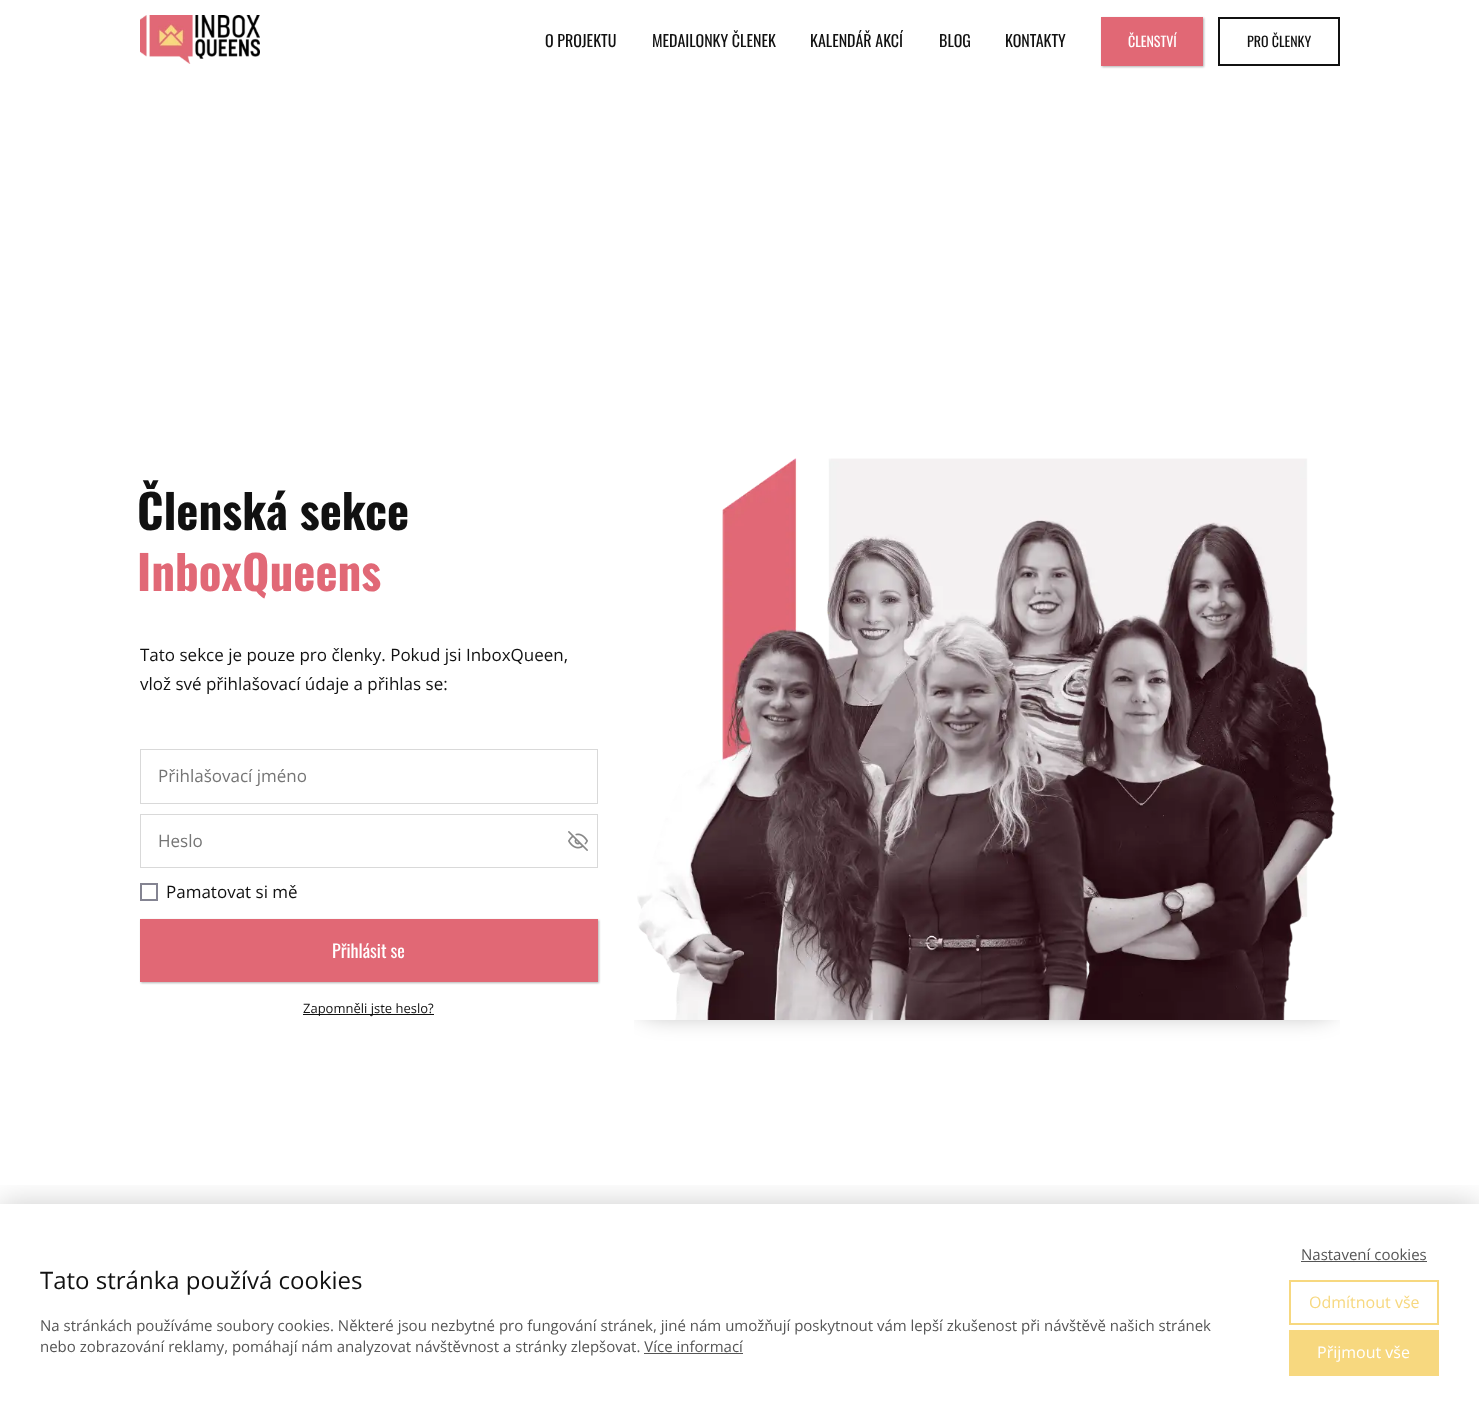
<!DOCTYPE html>
<meta charset="utf-8">
<style>body { margin: 0 } canvas { display: block }</style>
<canvas id="canvas" width="1479" height="1416"></canvas>
<script type="module">
  const canvas = document.getElementById("canvas");
  const g = canvas.getContext("2d");
  g.miterLimit = 4;
  g.fontKerning = "normal";
  function drawText(s, x, y, [font, color]) {
    g.font = font;
    g.fillStyle = color;
    g.fillText(s, x, y);
  }
  function fillBox(x, y, w, h, color) {
    g.fillStyle = color;
    g.fillRect(x, y, w, h);
  }
  async function drawPicture(src, x, y, w, h) {
    const img = new Image();
    img.src = src;
    await img.decode();
    g.drawImage(img, x, y, w, h);
  }

  const s1 = ["16px Oswald", "#111111"];
  const s2 = ["14px Oswald", "#FFFFFF"];
  const s3 = ["14px Oswald", "#111111"];
  const s4 = ["bold 47px Oswald", "#111111"];
  const s5 = ["bold 47px Oswald", "#E16876"];
  const s6 = ["17px Open Sans", "#111111"];
  const s7 = ["17px Open Sans", "#757575"];
  const s8 = ["18px Oswald", "#FFFFFF"];
  const s9 = ["13px Open Sans", "#111111"];
  const s10 = ["24px Open Sans", "#111111"];
  const s11 = ["15px Open Sans", "#555555"];
  const s12 = ["16px Open Sans", "#F7D87F"];
  const s13 = ["16px Open Sans", "#FFFFFF"];

  fillBox(0, 0, 1479, 1416, "#FFFFFF");
  await drawPicture("pic1.png", 140, 15, 120, 49);
  drawText("O PROJEKTU", 545, 47, s1);
  drawText("MEDAILONKY ČLENEK", 652, 47, s1);
  drawText("KALENDÁŘ AKCÍ", 810, 47, s1);
  drawText("BLOG", 939, 47, s1);
  drawText("KONTAKTY", 1005, 47, s1);
  g.fillStyle = "rgba(0, 0, 0, 0.3)";
  g.filter = "blur(1px)";
  g.beginPath();
  g.rect(1102, 18, 102, 49);
  g.fill();
  g.filter = "none";
  fillBox(1101, 17, 102, 49, "#E16875");
  drawText("ČLENSTVÍ", 1128, 47, s2);
  g.strokeStyle = "#111111";
  g.lineWidth = 2;
  g.strokeRect(1219, 18, 120, 47);
  drawText("PRO ČLENKY", 1247, 47, s3);
  drawText("Členská sekce", 137, 530, s4);
  drawText("InboxQueens", 137, 591, s5);
  drawText("Tato sekce je pouze pro členky. Pokud jsi InboxQueen,", 140, 661, s6);
  drawText("vlož své přihlašovací údaje a přihlas se:", 140, 690, s6);
  g.strokeStyle = "#D9D9D9";
  g.lineWidth = 1;
  g.strokeRect(140.5, 749.5, 457, 54);
  drawText("Přihlašovací jméno", 158, 782, s7);
  g.strokeRect(140.5, 814.5, 457, 53);
  drawText("Heslo", 158, 847, s7);
  await drawPicture("pic2.png", 568, 831, 20, 20);
  g.strokeStyle = "#848492";
  g.lineWidth = 2;
  g.strokeRect(141, 884, 16, 16);
  drawText("Pamatovat si mě", 166, 898, s6);
  g.fillStyle = "rgba(0, 0, 0, 0.3)";
  g.filter = "blur(1px)";
  g.beginPath();
  g.rect(141, 920, 458, 63);
  g.fill();
  g.filter = "none";
  fillBox(140, 919, 458, 63, "#E16875");
  drawText("Přihlásit se", 332, 958, s8);
  fillBox(303, 1014, 131, 1, "#111111");
  drawText("Zapomněli jste heslo?", 303, 1013, s9);
  await drawPicture("pic3.png", 637, 458, 698, 562);
  g.save();
  g.beginPath();
  g.rect(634, 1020, 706, 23);
  g.clip();
  g.fillStyle = "rgba(0, 0, 0, 0.3)";
  g.filter = "blur(11.5px)";
  g.beginPath();
  g.roundRect(634, 965, 706, 50, 25);
  g.fill();
  g.filter = "none";
  g.restore();
  g.save();
  g.beginPath();
  g.rect(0, 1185, 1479, 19);
  g.clip();
  g.fillStyle = "rgba(0, 0, 0, 0.2)";
  g.filter = "blur(15px)";
  g.beginPath();
  g.rect(0, 1204, 1479, 212);
  g.fill();
  g.filter = "none";
  g.restore();
  drawText("Tato stránka používá cookies", 40, 1289, s10);
  drawText("Na stránkách používáme soubory cookies. Některé jsou nezbytné pro fungování stránek, jiné nám umožňují poskytnout vám lepší zkušenost při návštěvě našich stránek", 40, 1331, s11);
  drawText("nebo zobrazování reklamy, pomáhají nám analyzovat návštěvnost a stránky zlepšovat. Více informací", 40, 1352, s11);
  fillBox(644, 1353, 99, 1, "#555555");
  drawText("Nastavení cookies", 1301, 1260, s11);
  fillBox(1301, 1261, 126, 1, "#555555");
  g.strokeStyle = "#F7D87F";
  g.strokeRect(1290, 1281, 148, 43);
  drawText("Odmítnout vše", 1309, 1308, s12);
  fillBox(1289, 1330, 150, 46, "#F7D87F");
  drawText("Přijmout vše", 1317, 1358, s13);
</script>
